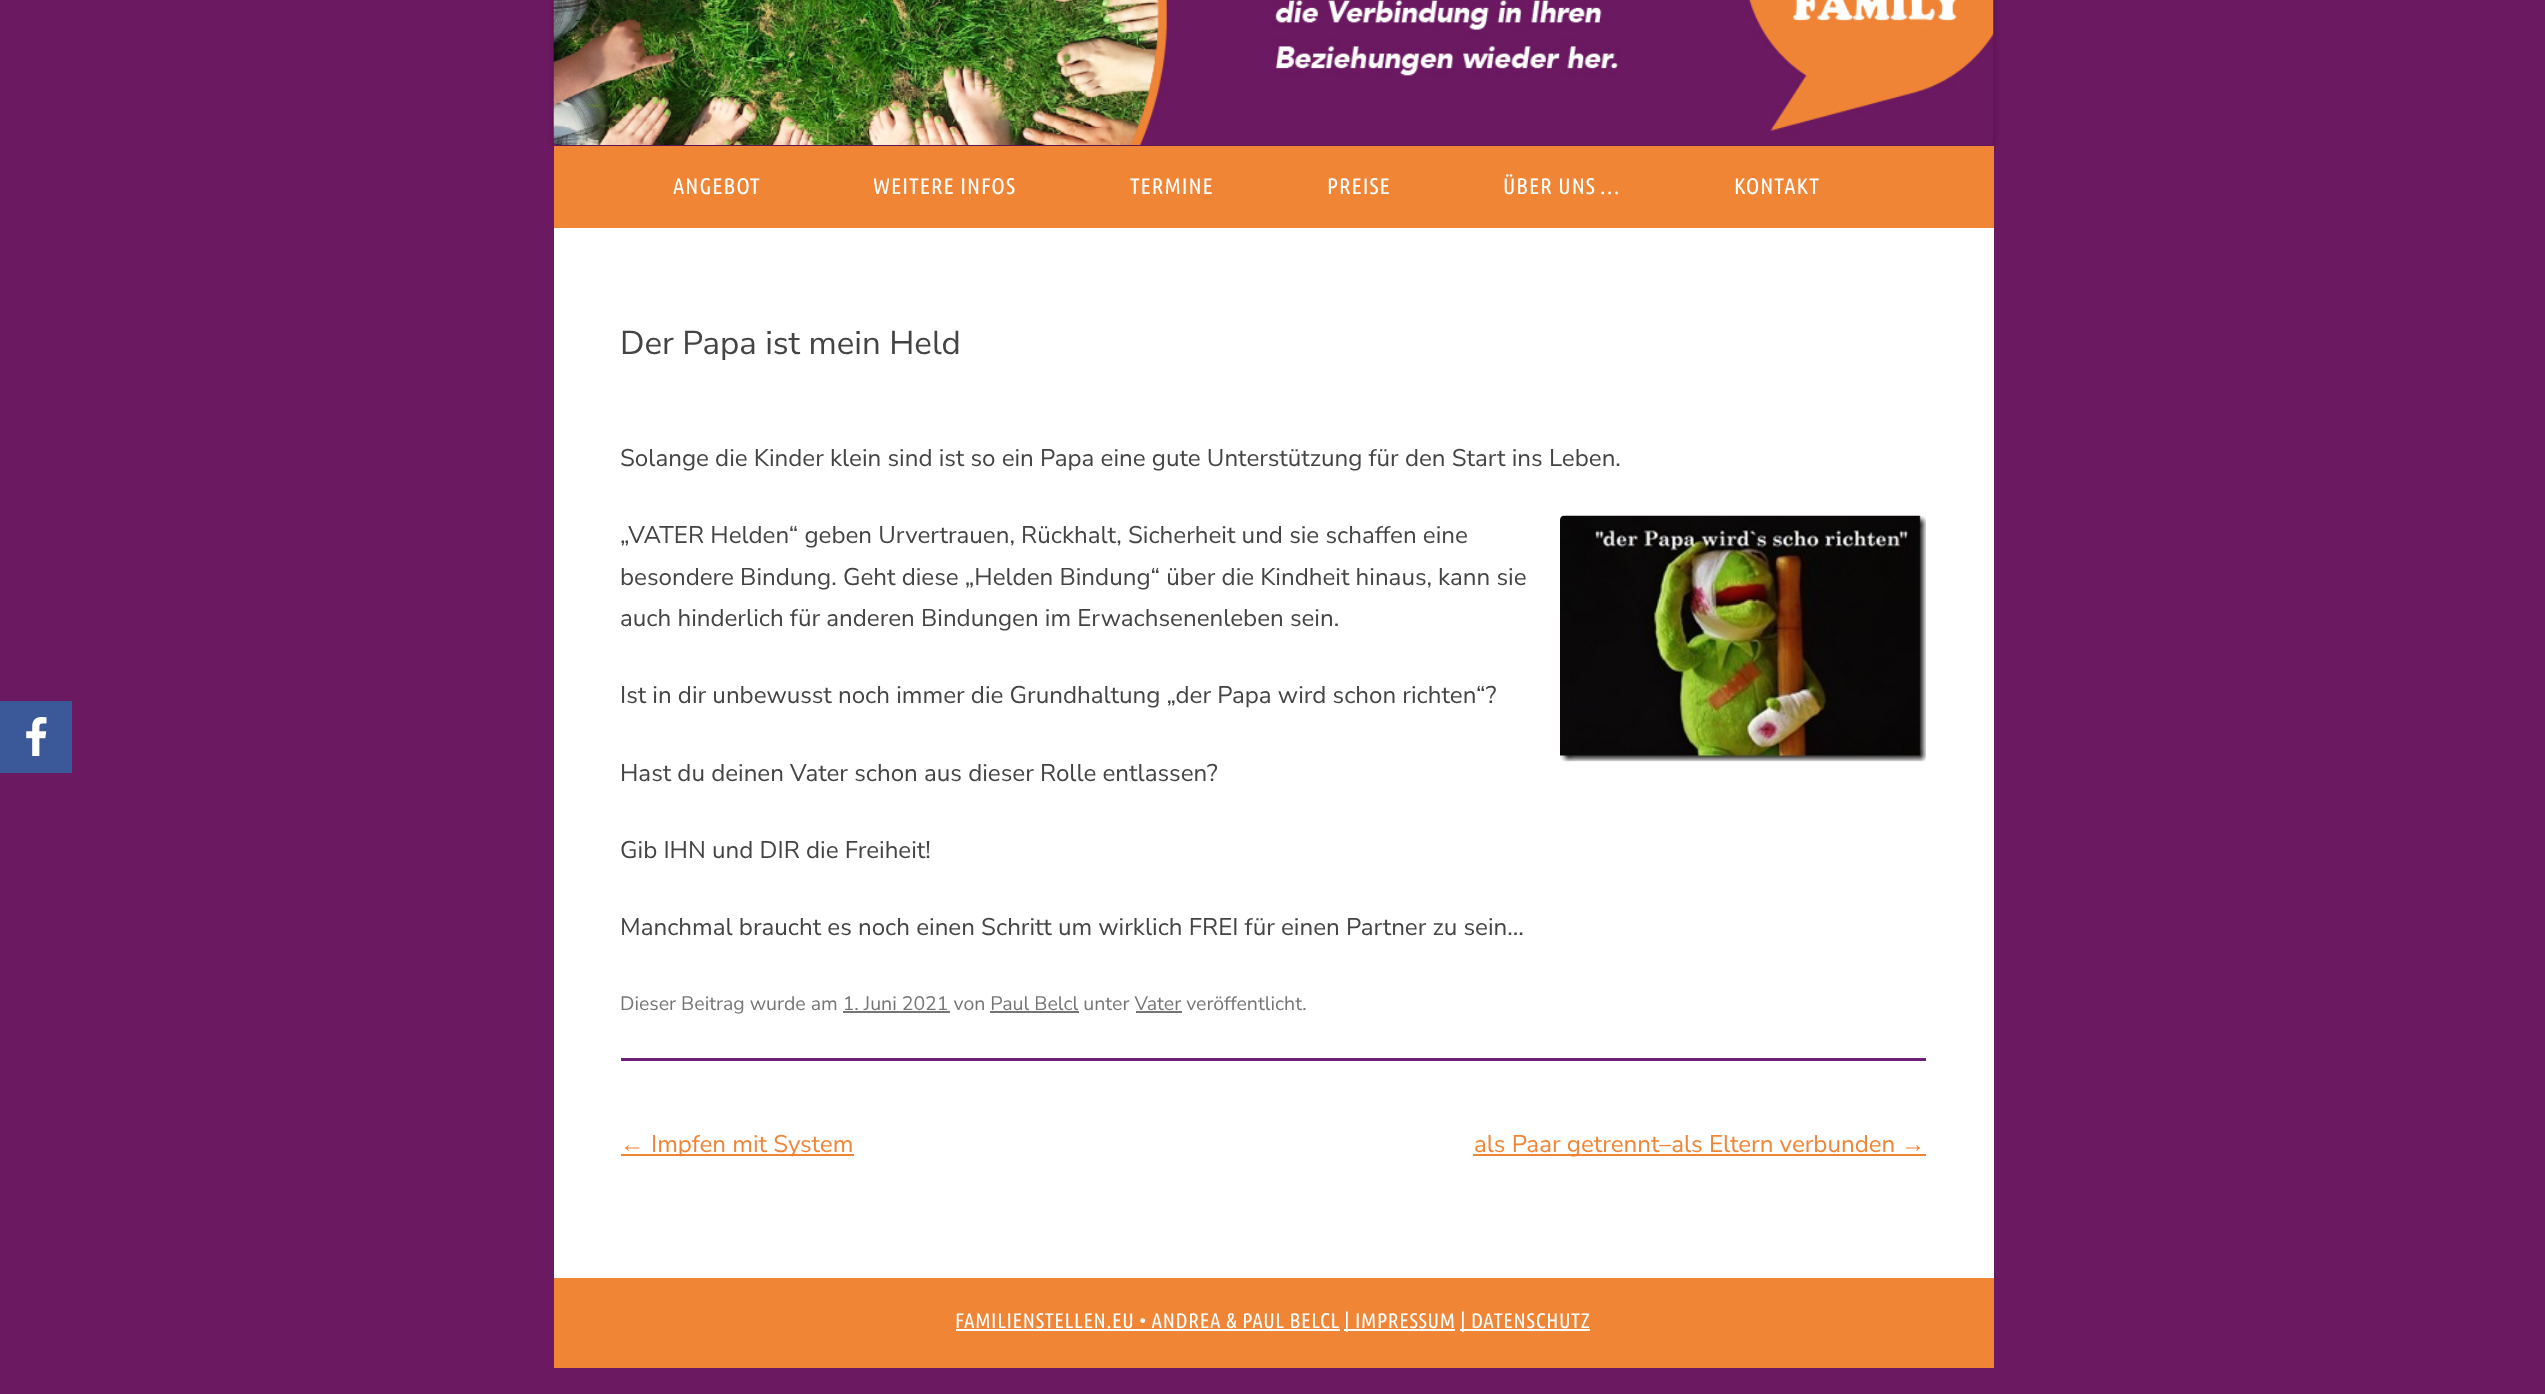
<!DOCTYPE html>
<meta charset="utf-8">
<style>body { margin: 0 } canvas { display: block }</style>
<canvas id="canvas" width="2545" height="1394"></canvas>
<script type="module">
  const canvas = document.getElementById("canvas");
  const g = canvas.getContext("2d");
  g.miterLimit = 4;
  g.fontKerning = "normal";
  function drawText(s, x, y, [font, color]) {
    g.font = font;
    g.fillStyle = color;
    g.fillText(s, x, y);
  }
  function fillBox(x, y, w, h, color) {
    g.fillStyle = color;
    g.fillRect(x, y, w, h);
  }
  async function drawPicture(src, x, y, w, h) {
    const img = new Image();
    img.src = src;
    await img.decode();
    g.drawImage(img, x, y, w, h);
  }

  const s1 = ["22.5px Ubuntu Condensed", "#FFFFFF"];
  const s2 = ["33px Nunito Sans", "#444444"];
  const s3 = ["24.15px Nunito Sans", "#444444"];
  const s4 = ["19.5px Nunito Sans", "#757575"];
  const s5 = ["24.15px Liberation Sans", "#F08536"];
  const s6 = ["24.15px Nunito Sans", "#F08536"];
  const s7 = ["21px Ubuntu Condensed", "#FFFFFF"];

  fillBox(0, 0, 2545, 1394, "#6B1961");
  fillBox(0, 701, 72, 72, "#3B5998");
  await drawPicture("pic1.png", 26, 717, 21, 39);
  g.fillStyle = "rgba(0, 0, 0, 0.2)";
  g.filter = "blur(3px)";
  g.beginPath();
  g.roundRect(554, -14, 1440, 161, 5);
  g.fill();
  g.filter = "none";
  await drawPicture("pic2.png", 553, 0, 1441, 145);
  fillBox(554, 146, 1440, 82, "#F08536");
  g.letterSpacing = "1px";
  drawText("ANGEBOT", 673, 194, s1);
  drawText("WEITERE INFOS", 873, 194, s1);
  drawText("TERMINE", 1130, 194, s1);
  drawText("PREISE", 1327, 194, s1);
  drawText("ÜBER UNS …", 1503, 194, s1);
  drawText("KONTAKT", 1734, 194, s1);
  fillBox(554, 228, 1440, 1050, "#FFFFFF");
  fillBox(621, 1058, 1305, 3, "#6D2075");
  g.letterSpacing = "0px";
  drawText("Der Papa ist mein Held", 620, 354, s2);
  drawText("Solange die Kinder klein sind ist so ein Papa eine gute Unterstützung für den Start ins Leben.", 620, 466, s3);
  drawText("„VATER Helden“ geben Urvertrauen, Rückhalt, Sicherheit und sie schaffen eine", 620, 543, s3);
  await drawPicture("pic3.png", 1560, 515, 366, 247);
  drawText("besondere Bindung. Geht diese „Helden Bindung“ über die Kindheit hinaus, kann sie", 620, 585, s3);
  drawText("auch hinderlich für anderen Bindungen im Erwachsenenleben sein.", 620, 626, s3);
  drawText("Ist in dir unbewusst noch immer die Grundhaltung „der Papa wird schon richten“?", 620, 703, s3);
  drawText("Hast du deinen Vater schon aus dieser Rolle entlassen?", 620, 781, s3);
  drawText("Gib IHN und DIR die Freiheit!", 620, 858, s3);
  drawText("Manchmal braucht es noch einen Schritt um wirklich FREI für einen Partner zu sein…", 620, 935, s3);
  drawText("Dieser Beitrag wurde am 1. Juni 2021 von Paul Belcl unter Vater veröffentlicht.", 620, 1010, s4);
  fillBox(843, 1011, 107, 2, "#757575");
  fillBox(990, 1011, 89, 2, "#757575");
  fillBox(1136, 1011, 46, 2, "#757575");
  drawText("←", 620, 1152, s5);
  fillBox(621, 1154, 233, 2, "#F08536");
  drawText("Impfen mit System", 651, 1152, s6);
  fillBox(1473, 1154, 453, 2, "#F08536");
  drawText("als Paar getrennt–als Eltern verbunden", 1474, 1152, s6);
  drawText("→", 1901, 1152, s5);
  fillBox(554, 1278, 1440, 90, "#F08536");
  g.letterSpacing = "0.65px";
  drawText("FAMILIENSTELLEN.EU • ANDREA & PAUL BELCL", 955, 1328, s7);
  fillBox(956, 1329, 384, 2, "#FFFFFF");
  fillBox(1344, 1329, 111, 2, "#FFFFFF");
  drawText("| IMPRESSUM", 1344, 1328, s7);
  fillBox(1460, 1329, 130, 2, "#FFFFFF");
  drawText("| DATENSCHUTZ", 1460, 1328, s7);
</script>
